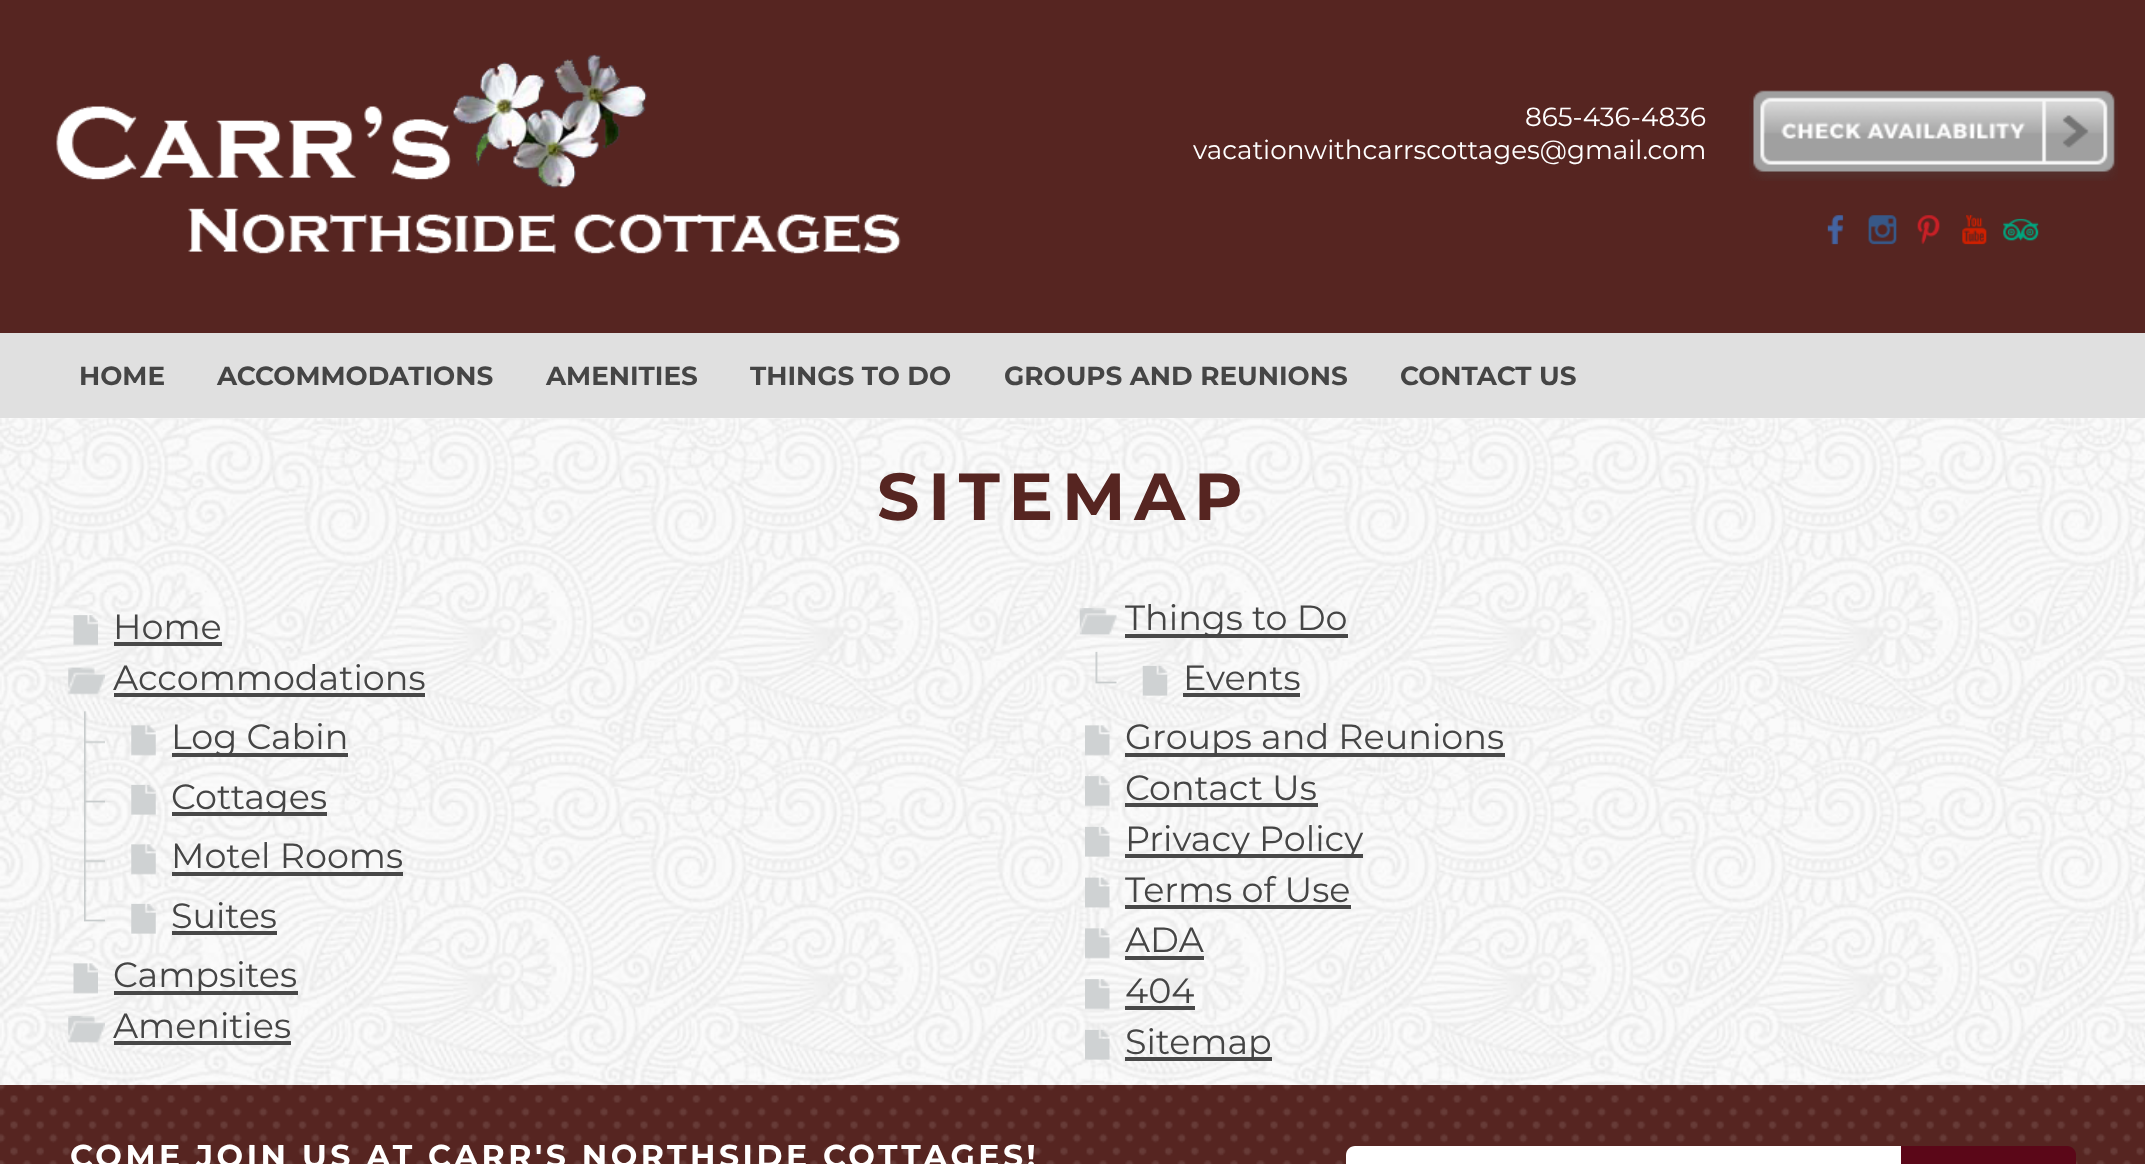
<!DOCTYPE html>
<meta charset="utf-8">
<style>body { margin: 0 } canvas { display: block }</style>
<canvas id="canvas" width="2145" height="1164"></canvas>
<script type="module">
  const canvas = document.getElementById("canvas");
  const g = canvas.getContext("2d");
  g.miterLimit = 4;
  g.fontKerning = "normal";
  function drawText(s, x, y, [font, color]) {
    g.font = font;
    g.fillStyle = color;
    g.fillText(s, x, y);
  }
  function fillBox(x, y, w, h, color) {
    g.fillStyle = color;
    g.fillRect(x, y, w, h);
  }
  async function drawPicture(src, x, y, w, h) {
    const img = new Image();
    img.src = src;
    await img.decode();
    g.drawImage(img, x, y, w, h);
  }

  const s1 = ["26.25px Montserrat", "#FFFFFF"];
  const s2 = ["bold 26.25px Montserrat", "#454545"];
  const s3 = ["bold 66.5px Montserrat", "#562521"];
  const s4 = ["35px Montserrat", "#454545"];
  const s5 = ["bold 31.5px Montserrat", "#FFFFFF"];

  fillBox(0, 0, 2145, 1164, "#FFFFFF");
  fillBox(0, 0, 2145, 333, "#562521");
  await drawPicture("pic1.png", 56, 54, 845, 200);
  drawText("865-436-4836", 1525, 126, s1);
  drawText("vacationwithcarrscottages@gmail.com", 1193, 159, s1);
  await drawPicture("pic2.png", 1749, 90, 369, 91);
  await drawPicture("pic3.png", 1827, 215, 17, 30);
  await drawPicture("pic4.png", 1868, 215, 29, 30);
  await drawPicture("pic5.png", 1917, 215, 23, 30);
  await drawPicture("pic6.png", 1962, 215, 25, 30);
  await drawPicture("pic7.png", 2003, 218, 36, 23);
  fillBox(0, 333, 2145, 85, "#E0E0E0");
  drawText("HOME", 79, 385, s2);
  drawText("ACCOMMODATIONS", 217, 385, s2);
  drawText("AMENITIES", 546, 385, s2);
  drawText("THINGS TO DO", 750, 385, s2);
  drawText("GROUPS AND REUNIONS", 1004, 385, s2);
  drawText("CONTACT US", 1400, 385, s2);
  await drawPicture("pic8.png", 0, 418, 2145, 667);
  g.letterSpacing = "8.75px";
  drawText("SITEMAP", 877, 520, s3);
  await drawPicture("pic9.png", 73, 615, 25, 31);
  g.letterSpacing = "0px";
  drawText("Home", 113, 639, s4);
  fillBox(114, 642, 108, 4, "#484848");
  await drawPicture("pic10.png", 1079, 608, 38, 27);
  fillBox(1125, 634, 223, 4, "#484848");
  drawText("Things to Do", 1125, 630, s4);
  await drawPicture("pic11.png", 1095, 651, 22, 33);
  await drawPicture("pic12.png", 1142, 665, 26, 31);
  drawText("Events", 1183, 690, s4);
  fillBox(1183, 693, 117, 4, "#484848");
  await drawPicture("pic13.png", 68, 667, 37, 28);
  drawText("Accommodations", 113, 690, s4);
  fillBox(114, 693, 311, 4, "#484848");
  await drawPicture("pic14.png", 84, 711, 21, 62);
  await drawPicture("pic15.png", 131, 725, 25, 31);
  fillBox(172, 753, 176, 4, "#484848");
  drawText("Log Cabin", 171, 749, s4);
  await drawPicture("pic16.png", 84, 771, 21, 62);
  await drawPicture("pic17.png", 131, 784, 25, 31);
  fillBox(172, 812, 155, 4, "#484848");
  drawText("Cottages", 171, 809, s4);
  await drawPicture("pic18.png", 84, 830, 21, 62);
  await drawPicture("pic19.png", 131, 844, 25, 31);
  drawText("Motel Rooms", 171, 868, s4);
  fillBox(172, 872, 231, 4, "#484848");
  await drawPicture("pic20.png", 84, 890, 21, 32);
  await drawPicture("pic21.png", 131, 903, 25, 31);
  drawText("Suites", 171, 928, s4);
  fillBox(172, 931, 105, 4, "#484848");
  await drawPicture("pic22.png", 1085, 725, 25, 31);
  fillBox(1125, 753, 380, 4, "#484848");
  drawText("Groups and Reunions", 1125, 749, s4);
  await drawPicture("pic23.png", 1085, 776, 25, 31);
  drawText("Contact Us", 1125, 800, s4);
  fillBox(1125, 803, 193, 4, "#484848");
  await drawPicture("pic24.png", 1085, 826, 25, 31);
  fillBox(1125, 854, 238, 4, "#484848");
  drawText("Privacy Policy", 1125, 851, s4);
  await drawPicture("pic25.png", 1085, 877, 25, 31);
  drawText("Terms of Use", 1125, 902, s4);
  fillBox(1125, 905, 226, 4, "#484848");
  await drawPicture("pic26.png", 1085, 928, 25, 31);
  drawText("ADA", 1125, 952, s4);
  fillBox(1125, 956, 79, 4, "#484848");
  await drawPicture("pic27.png", 73, 963, 25, 31);
  fillBox(114, 991, 184, 4, "#484848");
  drawText("Campsites", 113, 987, s4);
  await drawPicture("pic28.png", 1085, 979, 25, 31);
  drawText("404", 1125, 1003, s4);
  fillBox(1125, 1006, 70, 4, "#484848");
  await drawPicture("pic29.png", 68, 1015, 37, 28);
  drawText("Amenities", 113, 1038, s4);
  fillBox(114, 1041, 177, 4, "#484848");
  await drawPicture("pic30.png", 1085, 1029, 25, 31);
  fillBox(1125, 1057, 147, 4, "#484848");
  drawText("Sitemap", 1125, 1054, s4);
  fillBox(0, 1085, 2145, 79, "#562521");
  await drawPicture("pic31.png", 0, 1085, 2144, 79);
  g.letterSpacing = "3.5px";
  drawText("COME JOIN US AT CARR'S NORTHSIDE COTTAGES!", 70, 1167, s5);
  g.beginPath();
  g.moveTo(1355, 1146);
  g.lineTo(1901, 1146);
  g.lineTo(1901, 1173);
  g.lineTo(1355, 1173);
  g.bezierCurveTo(1350, 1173, 1346, 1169, 1346, 1164);
  g.lineTo(1346, 1155);
  g.bezierCurveTo(1346, 1150, 1350, 1146, 1355, 1146);
  g.closePath();
  g.fill();
  g.fillStyle = "#5B0718";
  g.beginPath();
  g.moveTo(1901, 1146);
  g.lineTo(2067, 1146);
  g.bezierCurveTo(2072, 1146, 2076, 1150, 2076, 1155);
  g.lineTo(2076, 1164);
  g.bezierCurveTo(2076, 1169, 2072, 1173, 2067, 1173);
  g.lineTo(1901, 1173);
  g.closePath();
  g.fill();
</script>
